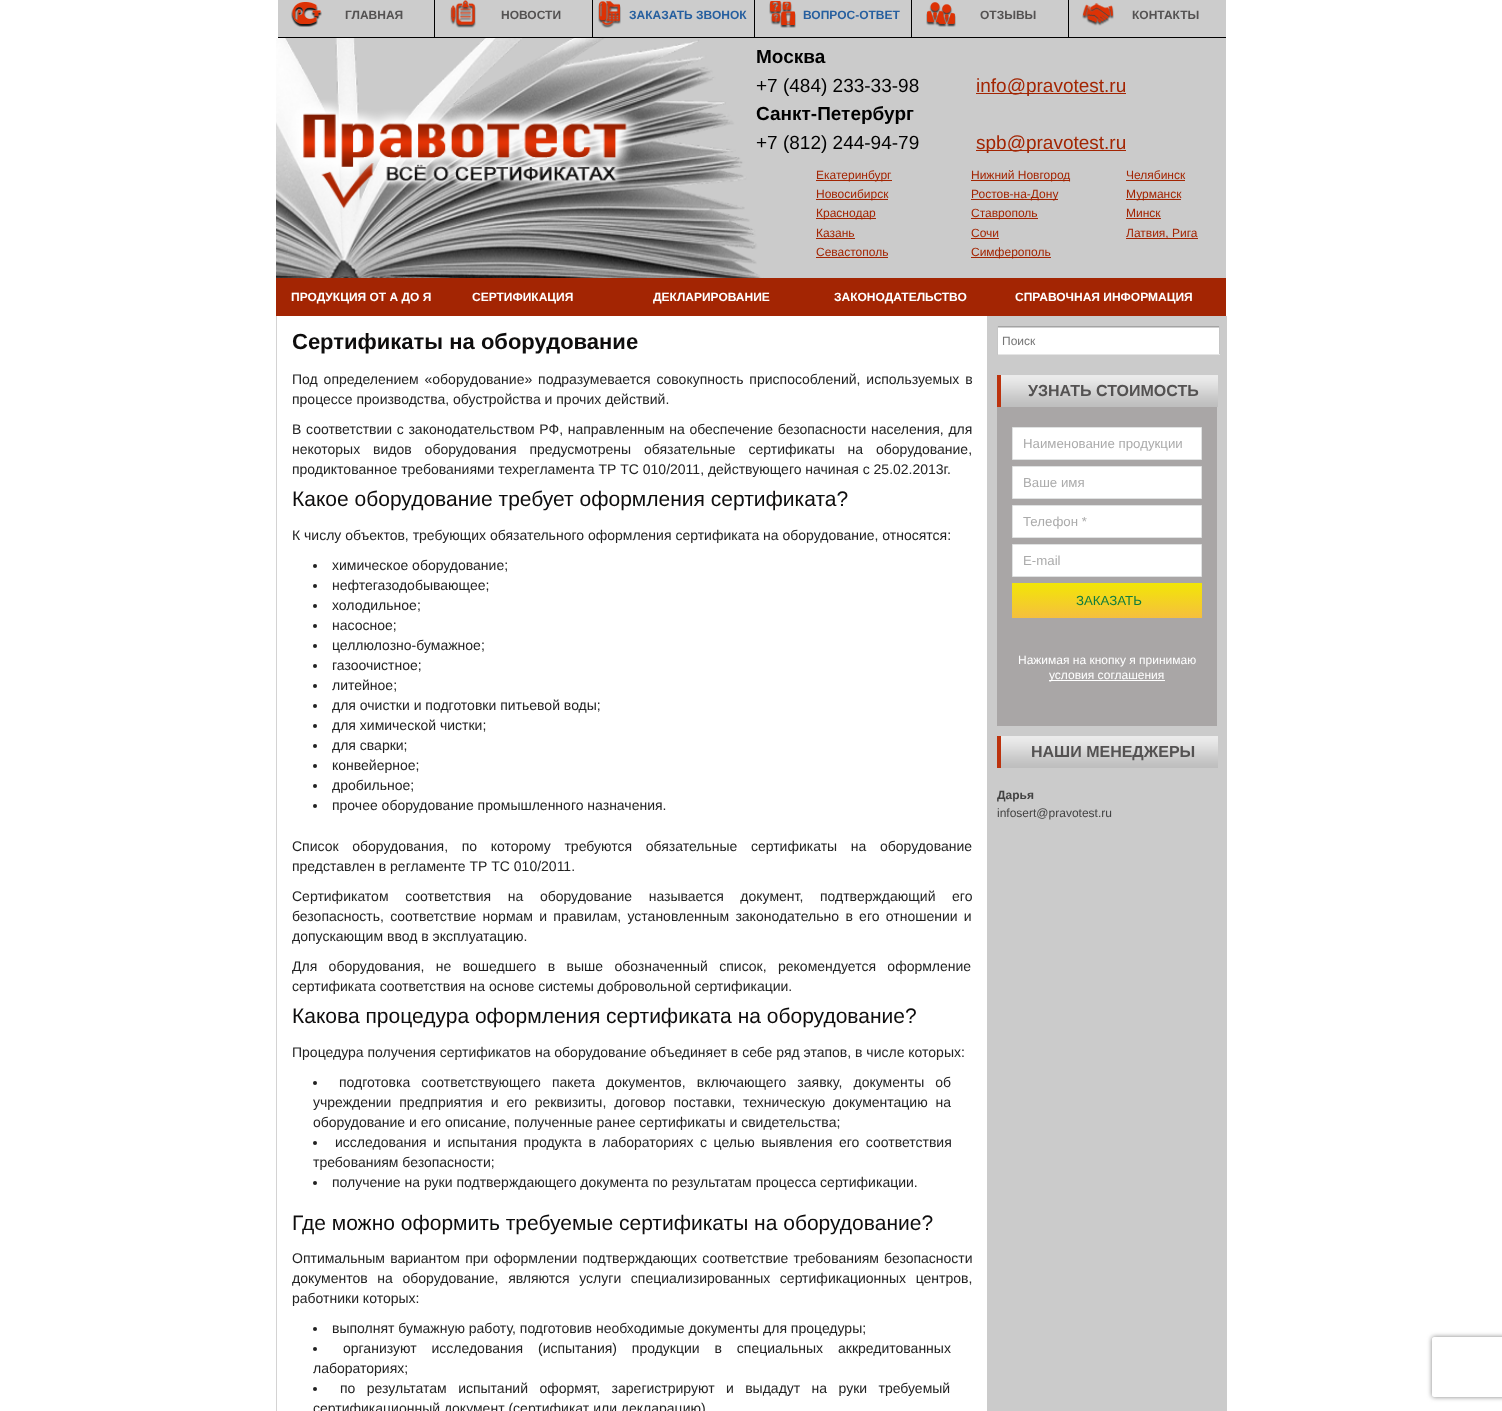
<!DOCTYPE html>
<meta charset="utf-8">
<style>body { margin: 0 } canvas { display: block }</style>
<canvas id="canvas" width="1502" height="1411"></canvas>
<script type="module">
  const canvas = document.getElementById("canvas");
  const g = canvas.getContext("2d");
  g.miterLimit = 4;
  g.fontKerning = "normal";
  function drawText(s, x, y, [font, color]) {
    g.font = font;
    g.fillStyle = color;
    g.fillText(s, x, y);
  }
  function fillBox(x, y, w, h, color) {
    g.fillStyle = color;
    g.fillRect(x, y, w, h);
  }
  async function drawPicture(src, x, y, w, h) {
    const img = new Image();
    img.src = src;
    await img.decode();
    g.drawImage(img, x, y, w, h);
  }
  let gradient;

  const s1 = ["bold 12px Liberation Sans", "#545252"];
  const s2 = ["bold 12px Liberation Sans", "#265F9F"];
  const s3 = ["bold 19px Liberation Sans", "#000000"];
  const s4 = ["19px Liberation Sans", "#000000"];
  const s5 = ["19px Liberation Sans", "#A32503"];
  const s6 = ["12px Liberation Sans", "#A32503"];
  const s7 = ["bold 12px Liberation Sans", "#FFFFFF"];
  const s8 = ["bold 22px Liberation Sans", "#0E0D0D"];
  const s9 = ["14px Liberation Sans", "#222222"];
  const s10 = ["21px Liberation Sans", "#0E0D0D"];
  const s11 = ["12px Liberation Sans", "#757575"];
  const s12 = ["bold 16px Liberation Sans", "#545252"];
  const s13 = ["13.25px Liberation Sans", "#ABABAB"];
  const s14 = ["13.25px Liberation Sans", "#107C3E"];
  const s15 = ["12px Liberation Sans", "#FFFFFF"];
  const s16 = ["bold 12px Liberation Sans", "#434343"];
  const s17 = ["12px Liberation Sans", "#434343"];

  fillBox(0, 0, 1502, 1411, "#FFFFFF");
  fillBox(278, 0, 156, 37, "#CCCCCC");
  fillBox(434, 0, 1, 38, "#000000");
  fillBox(278, 37, 157, 1, "#000000");
  await drawPicture("pic1.png", 291, 2, 31, 25);
  drawText("ГЛАВНАЯ", 345, 19, s1);
  fillBox(435, 0, 157, 37, "#CCCCCC");
  fillBox(592, 0, 1, 38, "#000000");
  fillBox(435, 37, 158, 1, "#000000");
  await drawPicture("pic2.png", 450, 0, 26, 28);
  drawText("НОВОСТИ", 501, 19, s1);
  fillBox(593, 0, 161, 37, "#CCCCCC");
  fillBox(754, 0, 1, 38, "#000000");
  fillBox(593, 37, 162, 1, "#000000");
  await drawPicture("pic3.png", 598, 1, 23, 27);
  drawText("ЗАКАЗАТЬ ЗВОНОК", 629, 19, s2);
  fillBox(755, 0, 156, 37, "#CCCCCC");
  fillBox(911, 0, 1, 38, "#000000");
  fillBox(755, 37, 157, 1, "#000000");
  await drawPicture("pic4.png", 769, 1, 27, 27);
  drawText("ВОПРОС-ОТВЕТ", 803, 19, s2);
  fillBox(912, 0, 156, 37, "#CCCCCC");
  fillBox(1068, 0, 1, 38, "#000000");
  fillBox(912, 37, 314, 1, "#000000");
  await drawPicture("pic5.png", 926, 2, 30, 25);
  drawText("ОТЗЫВЫ", 980, 19, s1);
  fillBox(1069, 0, 157, 37, "#CCCCCC");
  await drawPicture("pic6.png", 1082, 3, 32, 23);
  drawText("КОНТАКТЫ", 1132, 19, s1);
  fillBox(284, 38, 942, 240, "#CBCBCB");
  await drawPicture("pic7.png", 276, 38, 488, 240);
  drawText("Москва", 756, 63, s3);
  drawText("+7 (484) 233-33-98", 756, 92, s4);
  fillBox(976, 93, 150, 1, "#A32503");
  drawText("info@pravotest.ru", 976, 92, s5);
  drawText("Санкт-Петербург", 756, 120, s3);
  drawText("+7 (812) 244-94-79", 756, 149, s4);
  fillBox(976, 150, 150, 1, "#A32503");
  drawText("spb@pravotest.ru", 976, 149, s5);
  fillBox(816, 180, 76, 1, "#A32503");
  drawText("Екатеринбург", 816, 179, s6);
  fillBox(816, 199, 72, 1, "#A32503");
  drawText("Новосибирск", 816, 198, s6);
  fillBox(816, 218, 60, 1, "#A32503");
  drawText("Краснодар", 816, 217, s6);
  drawText("Казань", 816, 237, s6);
  fillBox(816, 238, 39, 1, "#A32503");
  drawText("Севастополь", 816, 256, s6);
  fillBox(816, 257, 72, 1, "#A32503");
  fillBox(971, 180, 99, 1, "#A32503");
  drawText("Нижний Новгород", 971, 179, s6);
  fillBox(971, 199, 87, 1, "#A32503");
  drawText("Ростов-на-Дону", 971, 198, s6);
  fillBox(971, 218, 67, 1, "#A32503");
  drawText("Ставрополь", 971, 217, s6);
  drawText("Сочи", 971, 237, s6);
  fillBox(971, 238, 28, 1, "#A32503");
  fillBox(971, 257, 80, 1, "#A32503");
  drawText("Симферополь", 971, 256, s6);
  drawText("Челябинск", 1126, 179, s6);
  fillBox(1126, 180, 59, 1, "#A32503");
  fillBox(1126, 199, 55, 1, "#A32503");
  drawText("Мурманск", 1126, 198, s6);
  drawText("Минск", 1126, 217, s6);
  fillBox(1126, 218, 35, 1, "#A32503");
  fillBox(1126, 238, 72, 1, "#A32503");
  drawText("Латвия, Рига", 1126, 237, s6);
  fillBox(276, 278, 950, 38, "#A32503");
  drawText("ПРОДУКЦИЯ ОТ А ДО Я", 291, 301, s7);
  drawText("СЕРТИФИКАЦИЯ", 472, 301, s7);
  drawText("ДЕКЛАРИРОВАНИЕ", 653, 301, s7);
  drawText("ЗАКОНОДАТЕЛЬСТВО", 834, 301, s7);
  drawText("СПРАВОЧНАЯ ИНФОРМАЦИЯ", 1015, 301, s7);
  fillBox(987, 316, 240, 1095, "#CBCBCB");
  fillBox(276, 316, 1, 1095, "#D4D3D3");
  drawText("Сертификаты на оборудование", 292, 349, s8);
  g.wordSpacing = "2px";
  drawText("Под определением «оборудование» подразумевается совокупность приспособлений, используемых в", 292, 384, s9);
  g.wordSpacing = "0px";
  drawText("процессе производства, обустройства и прочих действий.", 292, 404, s9);
  g.wordSpacing = "0.75px";
  drawText("В соответствии с законодательством РФ, направленным на обеспечение безопасности населения, для", 292, 434, s9);
  g.wordSpacing = "9px";
  drawText("некоторых видов оборудования предусмотрены обязательные сертификаты на оборудование,", 292, 454, s9);
  g.wordSpacing = "0px";
  drawText("продиктованное требованиями техрегламента ТР ТС 010/2011, действующего начиная с 25.02.2013г.", 292, 474, s9);
  drawText("Какое оборудование требует оформления сертификата?", 292, 506, s10);
  drawText("К числу объектов, требующих обязательного оформления сертификата на оборудование, относятся:", 292, 540, s9);
  g.beginPath();
  g.arc(315, 566, 2, 0, Math.PI * 2);
  g.fill();
  drawText("химическое оборудование;", 332, 570, s9);
  g.beginPath();
  g.arc(315, 586, 2, 0, Math.PI * 2);
  g.fill();
  drawText("нефтегазодобывающее;", 332, 590, s9);
  g.beginPath();
  g.arc(315, 606, 2, 0, Math.PI * 2);
  g.fill();
  drawText("холодильное;", 332, 610, s9);
  g.beginPath();
  g.arc(315, 626, 2, 0, Math.PI * 2);
  g.fill();
  drawText("насосное;", 332, 630, s9);
  g.beginPath();
  g.arc(315, 646, 2, 0, Math.PI * 2);
  g.fill();
  drawText("целлюлозно-бумажное;", 332, 650, s9);
  g.beginPath();
  g.arc(315, 666, 2, 0, Math.PI * 2);
  g.fill();
  drawText("газоочистное;", 332, 670, s9);
  g.beginPath();
  g.arc(315, 686, 2, 0, Math.PI * 2);
  g.fill();
  drawText("литейное;", 332, 690, s9);
  g.beginPath();
  g.arc(315, 706, 2, 0, Math.PI * 2);
  g.fill();
  drawText("для очистки и подготовки питьевой воды;", 332, 710, s9);
  g.beginPath();
  g.arc(315, 726, 2, 0, Math.PI * 2);
  g.fill();
  drawText("для химической чистки;", 332, 730, s9);
  g.beginPath();
  g.arc(315, 746, 2, 0, Math.PI * 2);
  g.fill();
  drawText("для сварки;", 332, 750, s9);
  g.beginPath();
  g.arc(315, 766, 2, 0, Math.PI * 2);
  g.fill();
  drawText("конвейерное;", 332, 770, s9);
  g.beginPath();
  g.arc(315, 786, 2, 0, Math.PI * 2);
  g.fill();
  drawText("дробильное;", 332, 790, s9);
  g.beginPath();
  g.arc(315, 806, 2, 0, Math.PI * 2);
  g.fill();
  drawText("прочее оборудование промышленного назначения.", 332, 810, s9);
  g.wordSpacing = "9.75px";
  drawText("Список оборудования, по которому требуются обязательные сертификаты на оборудование", 292, 851, s9);
  g.wordSpacing = "0px";
  drawText("представлен в регламенте ТР ТС 010/2011.", 292, 871, s9);
  g.wordSpacing = "12.75px";
  drawText("Сертификатом соответствия на оборудование называется документ, подтверждающий его", 292, 901, s9);
  g.wordSpacing = "2.4px";
  drawText("безопасность, соответствие нормам и правилам, установленным законодательно в его отношении и", 292, 921, s9);
  g.wordSpacing = "0px";
  drawText("допускающим ввод в эксплуатацию.", 292, 941, s9);
  g.wordSpacing = "7.5px";
  drawText("Для оборудования, не вошедшего в выше обозначенный список, рекомендуется оформление", 292, 971, s9);
  g.wordSpacing = "0px";
  drawText("сертификата соответствия на основе системы добровольной сертификации.", 292, 991, s9);
  drawText("Какова процедура оформления сертификата на оборудование?", 292, 1023, s10);
  drawText("Процедура получения сертификатов на оборудование объединяет в себе ряд этапов, в числе которых:", 292, 1057, s9);
  g.beginPath();
  g.arc(315, 1083, 2, 0, Math.PI * 2);
  g.fill();
  g.wordSpacing = "7.25px";
  drawText("подготовка соответствующего пакета документов, включающего заявку, документы об", 339, 1087, s9);
  g.wordSpacing = "4px";
  drawText("учреждении предприятия и его реквизиты, договор поставки, техническую документацию на", 313, 1107, s9);
  g.wordSpacing = "0px";
  drawText("оборудование и его описание, полученные ранее сертификаты и свидетельства;", 313, 1127, s9);
  g.beginPath();
  g.arc(315, 1143, 2, 0, Math.PI * 2);
  g.fill();
  g.wordSpacing = "2.6px";
  drawText("исследования и испытания продукта в лабораториях с целью выявления его соответствия", 335, 1147, s9);
  g.wordSpacing = "0px";
  drawText("требованиям безопасности;", 313, 1167, s9);
  g.beginPath();
  g.arc(315, 1183, 2, 0, Math.PI * 2);
  g.fill();
  drawText("получение на руки подтверждающего документа по результатам процесса сертификации.", 332, 1187, s9);
  drawText("Где можно оформить требуемые сертификаты на оборудование?", 292, 1230, s10);
  g.wordSpacing = "1.25px";
  drawText("Оптимальным вариантом при оформлении подтверждающих соответствие требованиям безопасности", 292, 1263, s9);
  g.wordSpacing = "5.75px";
  drawText("документов на оборудование, являются услуги специализированных сертификационных центров,", 292, 1283, s9);
  g.wordSpacing = "0px";
  drawText("работники которых:", 292, 1303, s9);
  g.beginPath();
  g.arc(315, 1329, 2, 0, Math.PI * 2);
  g.fill();
  drawText("выполнят бумажную работу, подготовив необходимые документы для процедуры;", 332, 1333, s9);
  g.beginPath();
  g.arc(315, 1349, 2, 0, Math.PI * 2);
  g.fill();
  g.wordSpacing = "11px";
  drawText("организуют исследования (испытания) продукции в специальных аккредитованных", 343, 1353, s9);
  g.wordSpacing = "0px";
  drawText("лабораториях;", 313, 1373, s9);
  g.beginPath();
  g.arc(315, 1389, 2, 0, Math.PI * 2);
  g.fill();
  g.wordSpacing = "7.5px";
  drawText("по результатам испытаний оформят, зарегистрируют и выдадут на руки требуемый", 340, 1393, s9);
  g.wordSpacing = "0px";
  drawText("сертификационный документ (сертификат или декларацию)", 313, 1413, s9);
  fillBox(998, 328, 221, 26, "#FFFFFF");
  fillBox(998, 327, 221, 1, "#CFCFCF");
  fillBox(997, 326, 223, 1, "#A3A3A3");
  fillBox(1219, 326, 1, 29, "#C6C6C6");
  fillBox(997, 354, 223, 1, "#E5E5E5");
  fillBox(997, 326, 1, 29, "#C6C6C6");
  drawText("Поиск", 1002, 345, s11);
  await drawPicture("pic8.png", 1001, 375, 217, 32);
  fillBox(997, 375, 4, 32, "#BC320D");
  drawText("УЗНАТЬ СТОИМОСТЬ", 1028, 396, s12);
  fillBox(997, 407, 220, 319, "#A9A6A6");
  g.fillStyle = "#FFFFFF";
  g.beginPath();
  g.rect(1012.5, 427.5, 189, 32);
  g.fill();
  g.strokeStyle = "#E0E2E2";
  g.stroke();
  drawText("Наименование продукции", 1023, 448, s13);
  g.fillStyle = "#FFFFFF";
  g.beginPath();
  g.rect(1012.5, 466.5, 189, 32);
  g.fill();
  g.stroke();
  drawText("Ваше имя", 1023, 487, s13);
  g.fillStyle = "#FFFFFF";
  g.beginPath();
  g.rect(1012.5, 505.5, 189, 32);
  g.fill();
  g.stroke();
  drawText("Телефон *", 1023, 526, s13);
  g.fillStyle = "#FFFFFF";
  g.beginPath();
  g.rect(1012.5, 544.5, 189, 32);
  g.fill();
  g.stroke();
  drawText("E-mail", 1023, 565, s13);
  gradient = g.createLinearGradient(1107, 618, 1107, 583);
  gradient.addColorStop(0, "#F5BF3E");
  gradient.addColorStop(1, "#F2E606");
  g.fillStyle = gradient;
  g.fillRect(1012, 583, 190, 35);
  drawText("ЗАКАЗАТЬ", 1076, 605, s14);
  drawText("Нажимая на кнопку я принимаю", 1018, 664, s15);
  fillBox(1049, 680, 116, 1, "#FFFFFF");
  drawText("условия соглашения", 1049, 679, s15);
  await drawPicture("pic8.png", 1001, 736, 217, 32);
  fillBox(997, 736, 4, 32, "#BC320D");
  drawText("НАШИ МЕНЕДЖЕРЫ", 1031, 757, s12);
  drawText("Дарья", 997, 799, s16);
  drawText("infosert@pravotest.ru", 997, 817, s17);
  g.save();
  g.beginPath();
  g.moveTo(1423, 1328);
  g.lineTo(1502, 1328);
  g.lineTo(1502, 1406);
  g.lineTo(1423, 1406);
  g.closePath();
  g.moveTo(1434, 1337);
  g.lineTo(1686, 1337);
  g.bezierCurveTo(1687, 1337, 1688, 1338, 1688, 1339);
  g.lineTo(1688, 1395);
  g.bezierCurveTo(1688, 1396, 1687, 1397, 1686, 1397);
  g.lineTo(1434, 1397);
  g.bezierCurveTo(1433, 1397, 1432, 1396, 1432, 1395);
  g.lineTo(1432, 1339);
  g.bezierCurveTo(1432, 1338, 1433, 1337, 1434, 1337);
  g.closePath();
  g.clip("evenodd");
  g.fillStyle = "#808080";
  g.filter = "blur(2.5px)";
  g.beginPath();
  g.roundRect(1432, 1337, 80, 60, 2);
  g.fill();
  g.filter = "none";
  g.restore();
</script>
